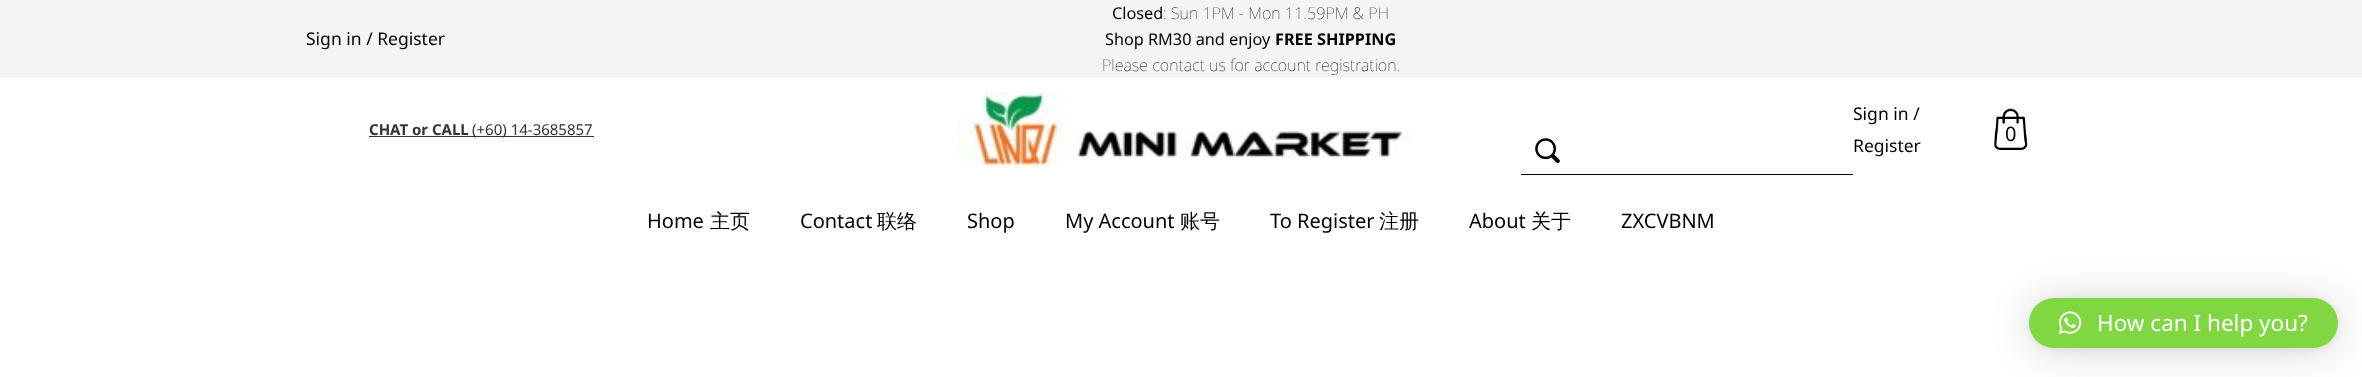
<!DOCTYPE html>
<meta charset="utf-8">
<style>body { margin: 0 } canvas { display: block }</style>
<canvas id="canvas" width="2362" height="377"></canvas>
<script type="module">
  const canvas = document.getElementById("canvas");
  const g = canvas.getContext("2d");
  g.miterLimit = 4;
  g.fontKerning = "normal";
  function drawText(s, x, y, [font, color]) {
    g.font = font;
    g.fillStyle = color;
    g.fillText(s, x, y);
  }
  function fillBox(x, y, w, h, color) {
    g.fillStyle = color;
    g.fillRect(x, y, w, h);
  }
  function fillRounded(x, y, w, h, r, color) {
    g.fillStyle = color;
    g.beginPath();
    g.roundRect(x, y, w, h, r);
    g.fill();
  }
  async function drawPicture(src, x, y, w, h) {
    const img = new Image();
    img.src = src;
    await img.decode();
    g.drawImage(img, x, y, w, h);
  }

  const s1 = ["17.5px Noto Sans", "#000000"];
  const s2 = ["16.25px Noto Sans", "#000000"];
  const s3 = ["100 16.25px Noto Sans", "#000000"];
  const s4 = ["bold 16.25px Noto Sans", "#000000"];
  const s5 = ["bold 15px Noto Sans", "#333333"];
  const s6 = ["15px Noto Sans", "#333333"];
  const s7 = ["20px Noto Sans", "#000000"];
  const s8 = ["500 20px WenQuanYi Zen Hei", "#000000"];
  const s9 = ["22.5px Noto Sans", "#FFFFFF"];

  fillBox(0, 0, 2362, 377, "#FFFFFF");
  fillBox(0, 0, 2362, 78, "#F3F4F6");
  drawText("Sign in / Register", 306, 45, s1);
  drawText("Closed", 1112, 19, s2);
  drawText(": Sun 1PM - Mon 11.59PM & PH", 1163, 19, s3);
  drawText("Shop RM30 and enjoy", 1105, 45, s2);
  drawText("FREE SHIPPING", 1275, 45, s4);
  drawText("Please contact us for account registration.", 1102, 71, s3);
  drawText("CHAT or CALL", 369, 135, s5);
  fillBox(369, 136, 225, 1, "#333333");
  drawText("(+60) 14-3685857", 472, 135, s6);
  await drawPicture("pic1.png", 957, 92, 454, 76);
  drawText("Sign in /", 1853, 120, s1);
  drawText("Register", 1853, 152, s1);
  await drawPicture("pic2.png", 1994, 108, 34, 42);
  drawText("0", 2005, 141, s7);
  fillBox(1521, 174, 332, 1, "#000000");
  await drawPicture("pic3.png", 1535, 138, 25, 26);
  drawText("Home", 647, 228, s7);
  drawText("主页", 710, 228, s8);
  drawText("Contact", 800, 228, s7);
  drawText("联络", 877, 228, s8);
  drawText("Shop", 967, 228, s7);
  drawText("My Account", 1065, 228, s7);
  drawText("账号", 1180, 228, s8);
  drawText("To Register", 1270, 228, s7);
  drawText("注册", 1379, 228, s8);
  drawText("About", 1469, 228, s7);
  drawText("关于", 1531, 228, s8);
  drawText("ZXCVBNM", 1621, 228, s7);
  g.fillStyle = "rgba(0, 0, 0, 0.16)";
  g.filter = "blur(20px)";
  g.beginPath();
  g.roundRect(2029, 300, 309, 50, 25);
  g.fill();
  g.filter = "none";
  g.fillStyle = "rgba(0, 0, 0, 0.06)";
  g.filter = "blur(4px)";
  g.beginPath();
  g.roundRect(2029, 299, 309, 50, 25);
  g.fill();
  g.filter = "none";
  fillRounded(2029, 298, 309, 50, 25, "#81D742");
  await drawPicture("pic4.png", 2058, 311, 24, 23);
  drawText("How can I help you?", 2097, 331, s9);
</script>
